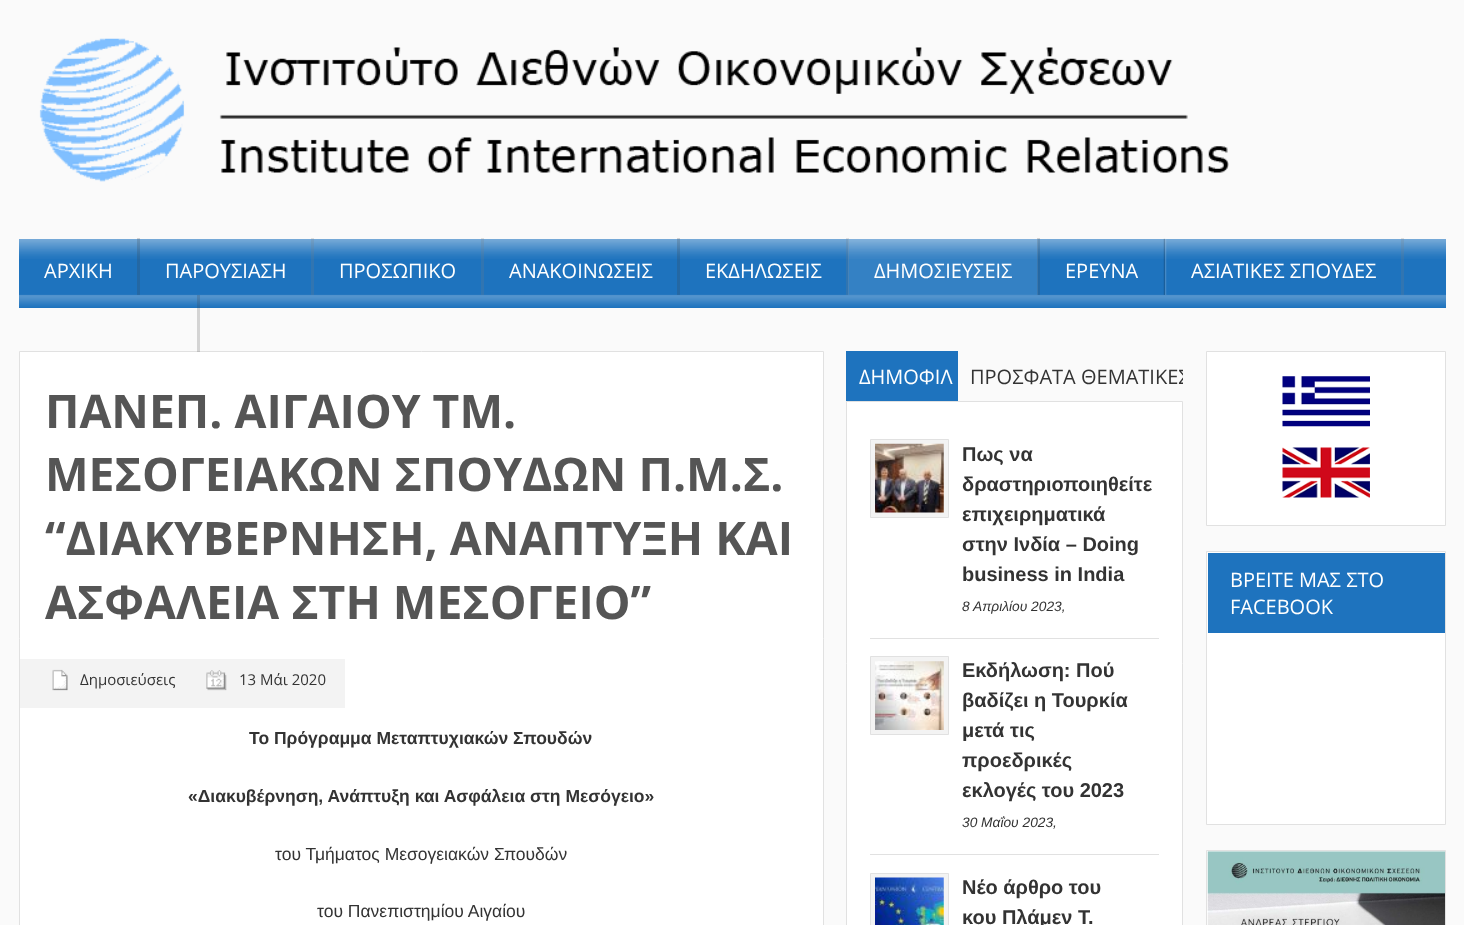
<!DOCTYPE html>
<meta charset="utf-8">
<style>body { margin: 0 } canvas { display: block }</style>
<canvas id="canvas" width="1464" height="925"></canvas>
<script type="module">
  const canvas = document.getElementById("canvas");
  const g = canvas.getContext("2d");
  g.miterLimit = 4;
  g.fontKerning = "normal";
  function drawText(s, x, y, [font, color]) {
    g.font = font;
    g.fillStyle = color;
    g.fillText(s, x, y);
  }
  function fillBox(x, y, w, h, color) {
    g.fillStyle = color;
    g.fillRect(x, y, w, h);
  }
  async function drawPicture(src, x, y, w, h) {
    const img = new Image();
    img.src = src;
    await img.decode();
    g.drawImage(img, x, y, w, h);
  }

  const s1 = ["20px Open Sans", "#FFFFFF"];
  const s2 = ["bold 46.25px Open Sans", "#555555"];
  const s3 = ["15px Open Sans", "#333333"];
  const s4 = ["bold 17.5px Liberation Sans", "#333333"];
  const s5 = ["17.5px Liberation Sans", "#333333"];
  const s6 = ["20px Open Sans", "#333333"];
  const s7 = ["bold 20px Liberation Sans", "#333333"];
  const s8 = ["italic 13.75px Liberation Sans", "#333333"];

  fillBox(0, 0, 1464, 925, "#FAFAFA");
  await drawPicture("pic1.png", 39, 38, 1190, 144);
  fillBox(19, 239, 1427, 69, "#1E73BE");
  await drawPicture("pic2.png", 19, 239, 1427, 68);
  fillBox(137, 238, 3, 57, "rgba(60, 60, 60, 0.2)");
  drawText("ΑΡΧΙΚΗ", 44, 278, s1);
  fillBox(311, 238, 3, 57, "rgba(125, 125, 125, 0.2)");
  drawText("ΠΑΡΟΥΣΙΑΣΗ", 165, 278, s1);
  fillBox(481, 238, 3, 57, "rgba(125, 125, 125, 0.2)");
  drawText("ΠΡΟΣΩΠΙΚΟ", 339, 278, s1);
  fillBox(677, 238, 3, 57, "rgba(60, 60, 60, 0.2)");
  drawText("ΑΝΑΚΟΙΝΩΣΕΙΣ", 509, 278, s1);
  fillBox(846, 238, 3, 57, "rgba(125, 125, 125, 0.2)");
  drawText("ΕΚΔΗΛΩΣΕΙΣ", 705, 278, s1);
  fillBox(1037, 238, 3, 57, "rgba(60, 60, 60, 0.2)");
  fillBox(848, 239, 190, 56, "rgba(255, 255, 255, 0.1)");
  drawText("ΔΗΜΟΣΙΕΥΣΕΙΣ", 874, 278, s1);
  await drawPicture("pic3.png", 1163, 238, 4, 57);
  drawText("ΕΡΕΥΝΑ", 1065, 278, s1);
  fillBox(1401, 238, 3, 57, "rgba(125, 125, 125, 0.2)");
  drawText("ΑΣΙΑΤΙΚΕΣ ΣΠΟΥΔΕΣ", 1191, 278, s1);
  g.beginPath();
  g.rect(19.5, 351.5, 804, 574);
  g.fill();
  g.strokeStyle = "#E1E1E1";
  g.stroke();
  fillBox(197, 295, 3, 57, "rgba(60, 60, 60, 0.2)");
  drawText("ΠΑΝΕΠ. ΑΙΓΑΙΟΥ ΤΜ.", 45, 428, s2);
  drawText("ΜΕΣΟΓΕΙΑΚΩΝ ΣΠΟΥΔΩΝ Π.M.Σ.", 45, 491, s2);
  drawText("“ΔΙΑΚΥΒΕΡΝΗΣΗ, ΑΝΑΠΤΥΞΗ ΚΑΙ", 45, 555, s2);
  drawText("ΑΣΦΑΛΕΙΑ ΣΤΗ ΜΕΣΟΓΕΙΟ”", 45, 619, s2);
  fillBox(20, 659, 325, 49, "#F3F3F3");
  await drawPicture("pic4.png", 52, 669, 16, 22);
  drawText("Δημοσιεύσεις", 80, 685, s3);
  await drawPicture("pic5.png", 206, 670, 21, 21);
  drawText("13 Μάι 2020", 239, 685, s3);
  drawText("Το Πρόγραμμα Μεταπτυχιακών Σπουδών", 249, 744, s4);
  drawText("«Διακυβέρνηση, Ανάπτυξη και Ασφάλεια στη Μεσόγειο»", 188, 802, s4);
  drawText("του Τμήματος Μεσογειακών Σπουδών", 275, 860, s5);
  drawText("του Πανεπιστημίου Αιγαίου", 317, 917, s5);
  fillBox(846, 351, 112, 50, "#1E73BE");
  drawText("ΔΗΜΟΦΙΛ", 859, 384, s1);
  drawText("ΠΡΟΣΦΑΤΑ", 970, 384, s6);
  g.save();
  g.beginPath();
  g.rect(846, 351, 337, 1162);
  g.clip();
  drawText("ΘΕΜΑΤΙΚΕΣ", 1081, 384, s6);
  g.restore();
  g.fillStyle = "#FFFFFF";
  g.beginPath();
  g.rect(846.5, 401.5, 336, 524);
  g.fill();
  g.stroke();
  fillBox(870, 638, 289, 1, "#E1E1E1");
  g.fillStyle = "#F3F3F3";
  g.beginPath();
  g.rect(870.5, 439.5, 78, 78);
  g.fill();
  g.stroke();
  await drawPicture("pic6.png", 875, 443, 69, 70);
  drawText("Πως να", 962, 461, s7);
  drawText("δραστηριοποιηθείτε", 962, 491, s7);
  drawText("επιχειρηματικά", 962, 521, s7);
  drawText("στην Ινδία – Doing", 962, 551, s7);
  drawText("business in India", 962, 581, s7);
  drawText("8 Απριλίου 2023,", 962, 611, s8);
  fillBox(870, 854, 289, 1, "#E1E1E1");
  g.fillStyle = "#F3F3F3";
  g.beginPath();
  g.rect(870.5, 656.5, 78, 78);
  g.fill();
  g.stroke();
  await drawPicture("pic7.png", 875, 661, 69, 69);
  drawText("Εκδήλωση: Πού", 962, 677, s7);
  drawText("βαδίζει η Τουρκία", 962, 707, s7);
  drawText("μετά τις", 962, 737, s7);
  drawText("προεδρικές", 962, 767, s7);
  drawText("εκλογές του 2023", 962, 797, s7);
  drawText("30 Μαΐου 2023,", 962, 827, s8);
  g.fillStyle = "#F3F3F3";
  g.beginPath();
  g.rect(870.5, 873.5, 78, 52);
  g.fill();
  g.stroke();
  await drawPicture("pic8.png", 875, 877, 69, 48);
  drawText("Νέο άρθρο του", 962, 894, s7);
  drawText("κου Πλάμεν Τ.", 962, 924, s7);
  g.fillStyle = "#FFFFFF";
  g.beginPath();
  g.rect(1206.5, 351.5, 239, 174);
  g.fill();
  g.stroke();
  await drawPicture("pic9.png", 1282, 376, 88, 51);
  await drawPicture("pic10.png", 1282, 447, 88, 51);
  g.beginPath();
  g.rect(1206.5, 551.5, 239, 273);
  g.fill();
  g.stroke();
  fillBox(1208, 553, 237, 80, "#1E73BE");
  drawText("ΒΡΕΙΤΕ ΜΑΣ ΣΤΟ", 1230, 587, s1);
  drawText("FACEBOOK", 1230, 614, s1);
  g.beginPath();
  g.rect(1206.5, 850.5, 239, 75);
  g.fill();
  g.stroke();
  await drawPicture("pic11.png", 1207, 851, 238, 74);
</script>
